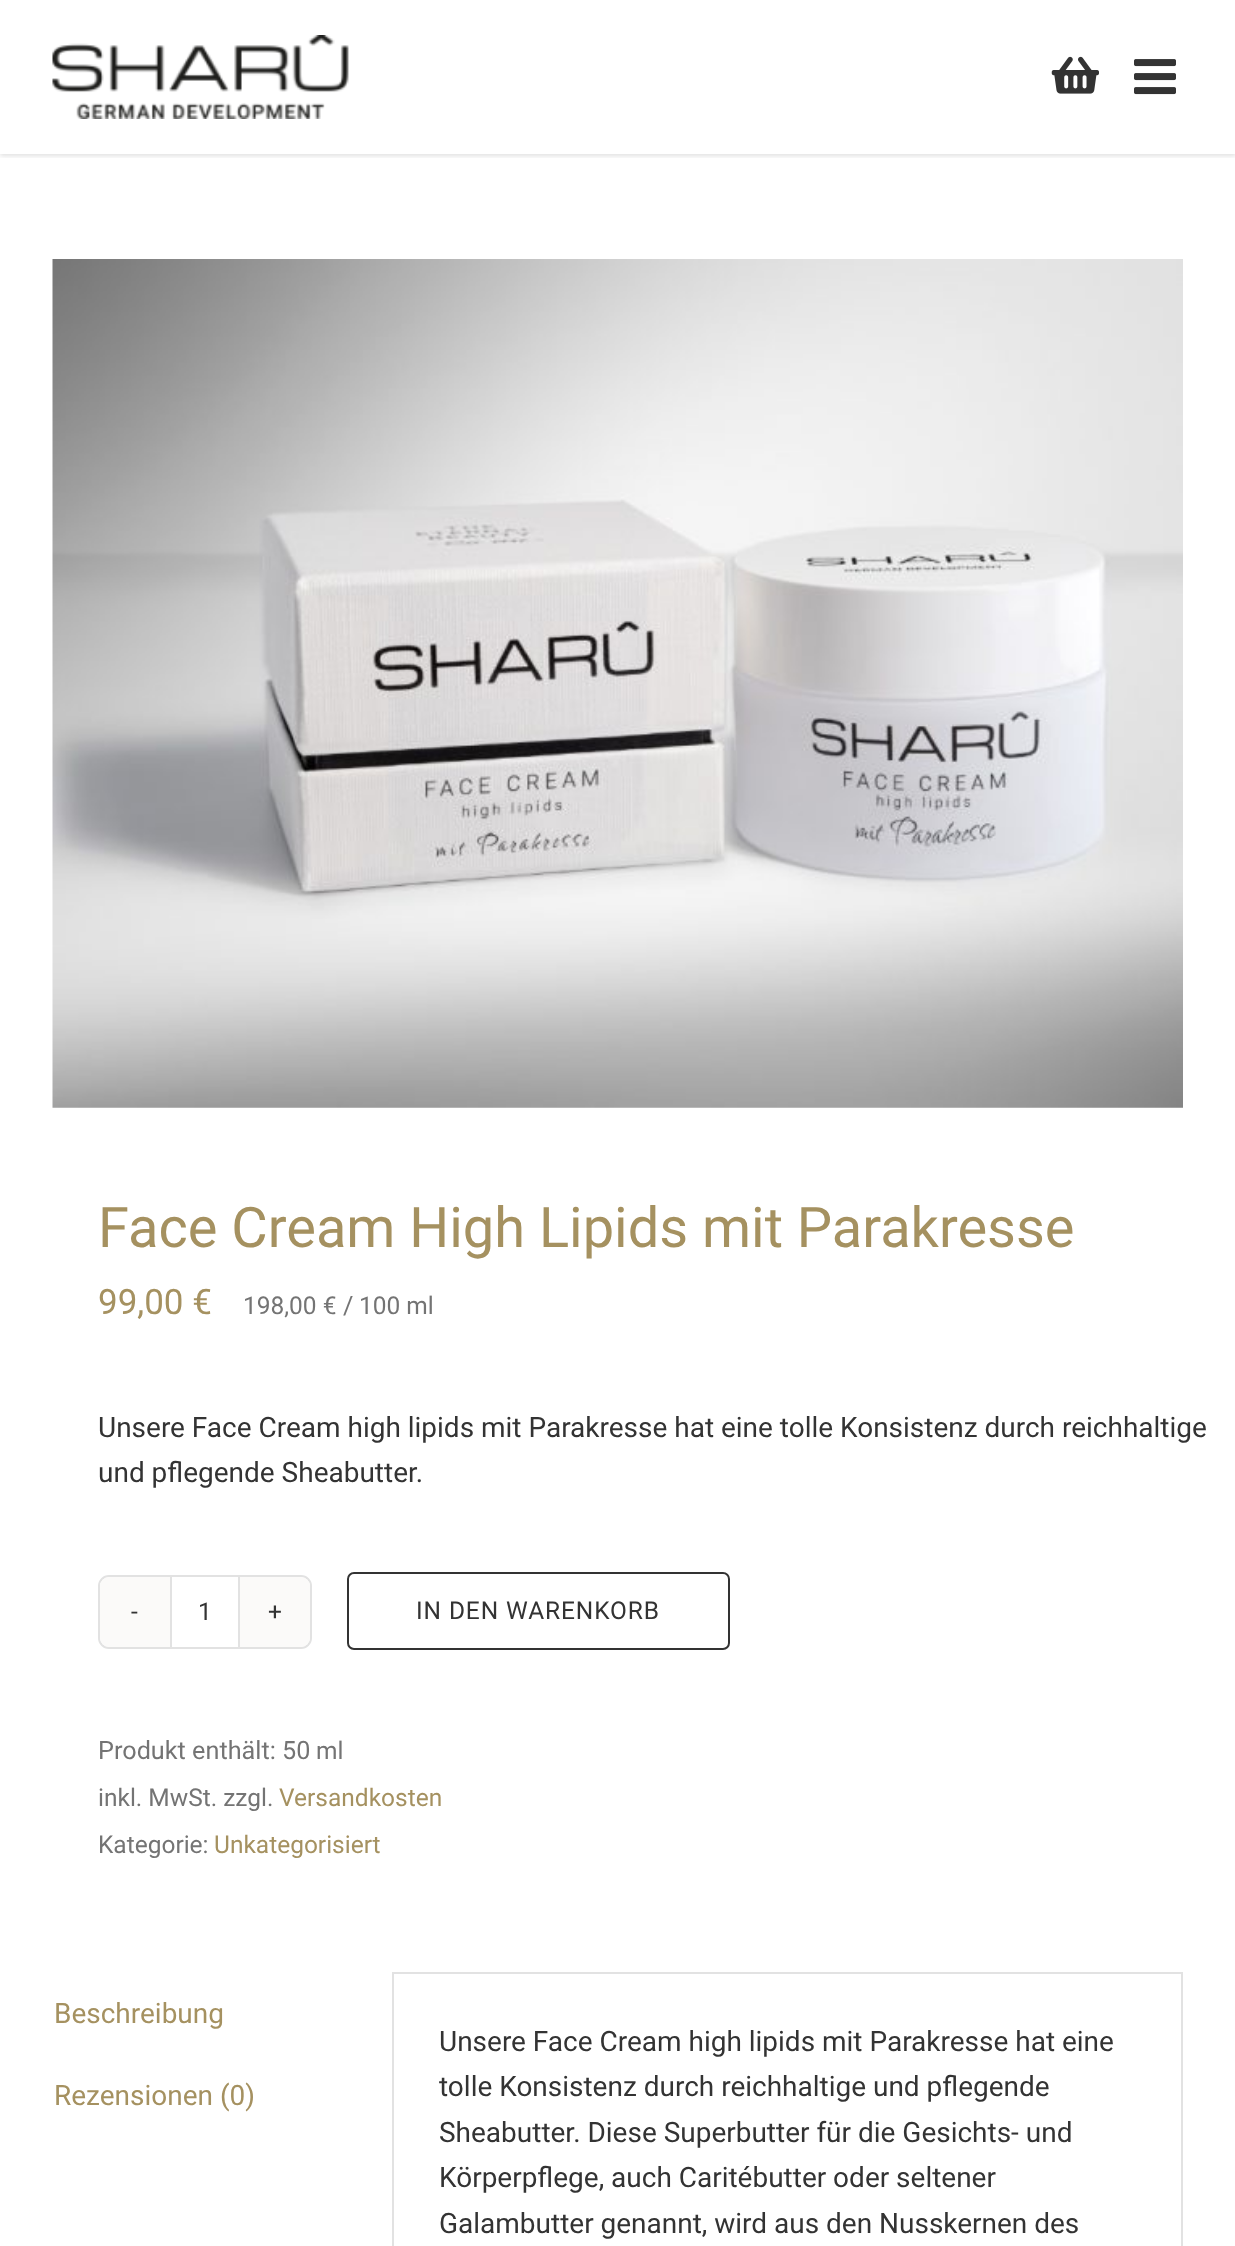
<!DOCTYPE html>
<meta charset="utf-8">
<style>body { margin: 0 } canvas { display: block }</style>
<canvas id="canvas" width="1235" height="2246"></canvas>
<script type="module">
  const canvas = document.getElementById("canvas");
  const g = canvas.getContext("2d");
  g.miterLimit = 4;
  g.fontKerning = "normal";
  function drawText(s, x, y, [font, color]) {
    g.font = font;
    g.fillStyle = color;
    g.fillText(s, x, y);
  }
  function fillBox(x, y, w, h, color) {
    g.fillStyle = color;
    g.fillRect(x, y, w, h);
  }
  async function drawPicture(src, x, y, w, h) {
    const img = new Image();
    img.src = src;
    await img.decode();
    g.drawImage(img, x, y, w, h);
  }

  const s1 = ["56px Roboto", "#A59160"];
  const s2 = ["35px Roboto", "#A59160"];
  const s3 = ["24.5px Roboto", "#747474"];
  const s4 = ["25.25px Roboto", "#747474"];
  const s5 = ["28px Roboto", "#333333"];
  const s6 = ["24.5px Roboto", "#333333"];
  const s7 = ["24.5px Roboto", "#A59160"];
  const s8 = ["28px Roboto", "#A59160"];

  fillBox(0, 0, 1235, 2246, "#FFFFFF");
  g.save();
  g.beginPath();
  g.rect(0, 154, 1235, 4);
  g.clip();
  g.fillStyle = "rgba(0, 0, 0, 0.12)";
  g.filter = "blur(2.5px)";
  g.beginPath();
  g.rect(0, 2, 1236, 154);
  g.fill();
  g.filter = "none";
  g.restore();
  await drawPicture("pic1.png", 52, 35, 297, 84);
  await drawPicture("pic2.png", 1051, 56, 48, 38);
  await drawPicture("pic3.png", 1134, 59, 42, 36);
  await drawPicture("pic4.png", 52, 259, 1131, 849);
  drawText("Face Cream High Lipids mit Parakresse", 98, 1247, s1);
  drawText("99,00 €", 98, 1314, s2);
  drawText("198,00 €", 243, 1314, s3);
  drawText("/", 343, 1314, s4);
  drawText("100 ml", 359, 1314, s3);
  drawText("Unsere Face Cream high lipids mit Parakresse hat eine tolle Konsistenz durch reichhaltige", 98, 1437, s5);
  drawText("und pflegende Sheabutter.", 98, 1482, s5);
  g.beginPath();
  g.roundRect(99, 1576, 212, 72, 10);
  g.strokeStyle = "#E2E2E2";
  g.lineWidth = 2;
  g.stroke();
  g.fillStyle = "#FBFAF9";
  g.beginPath();
  g.roundRect(100, 1577, 70, 70, [9, 0, 0, 9]);
  g.fill();
  drawText("-", 131, 1620, s6);
  fillBox(238, 1577, 2, 70, "#E2E2E2");
  fillBox(170, 1577, 2, 70, "#E2E2E2");
  drawText("1", 198, 1620, s6);
  g.fillStyle = "#FBFAF9";
  g.beginPath();
  g.roundRect(240, 1577, 70, 70, [0, 9, 9, 0]);
  g.fill();
  drawText("+", 268, 1620, s6);
  g.beginPath();
  g.roundRect(348, 1573, 381, 76, 6);
  g.strokeStyle = "#333333";
  g.stroke();
  g.letterSpacing = "0.9px";
  drawText("IN DEN WARENKORB", 416, 1619, s6);
  g.letterSpacing = "0px";
  drawText("Produkt enthält: 50", 98, 1759, s4);
  drawText("ml", 316, 1759, s3);
  drawText("inkl. MwSt. zzgl.", 98, 1806, s3);
  drawText("Versandkosten", 279, 1806, s7);
  drawText("Kategorie:", 98, 1853, s3);
  drawText("Unkategorisiert", 214, 1853, s7);
  drawText("Beschreibung", 54, 2023, s8);
  drawText("Rezensionen (0)", 54, 2105, s8);
  g.strokeStyle = "#E2E2E2";
  g.strokeRect(393, 1973, 789, 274);
  drawText("Unsere Face Cream high lipids mit Parakresse hat eine", 439, 2051, s5);
  drawText("tolle Konsistenz durch reichhaltige und pflegende", 439, 2096, s5);
  drawText("Sheabutter. Diese Superbutter für die Gesichts- und", 439, 2142, s5);
  drawText("Körperpflege, auch Caritébutter oder seltener", 439, 2187, s5);
  drawText("Galambutter genannt, wird aus den Nusskernen des", 439, 2233, s5);
</script>
